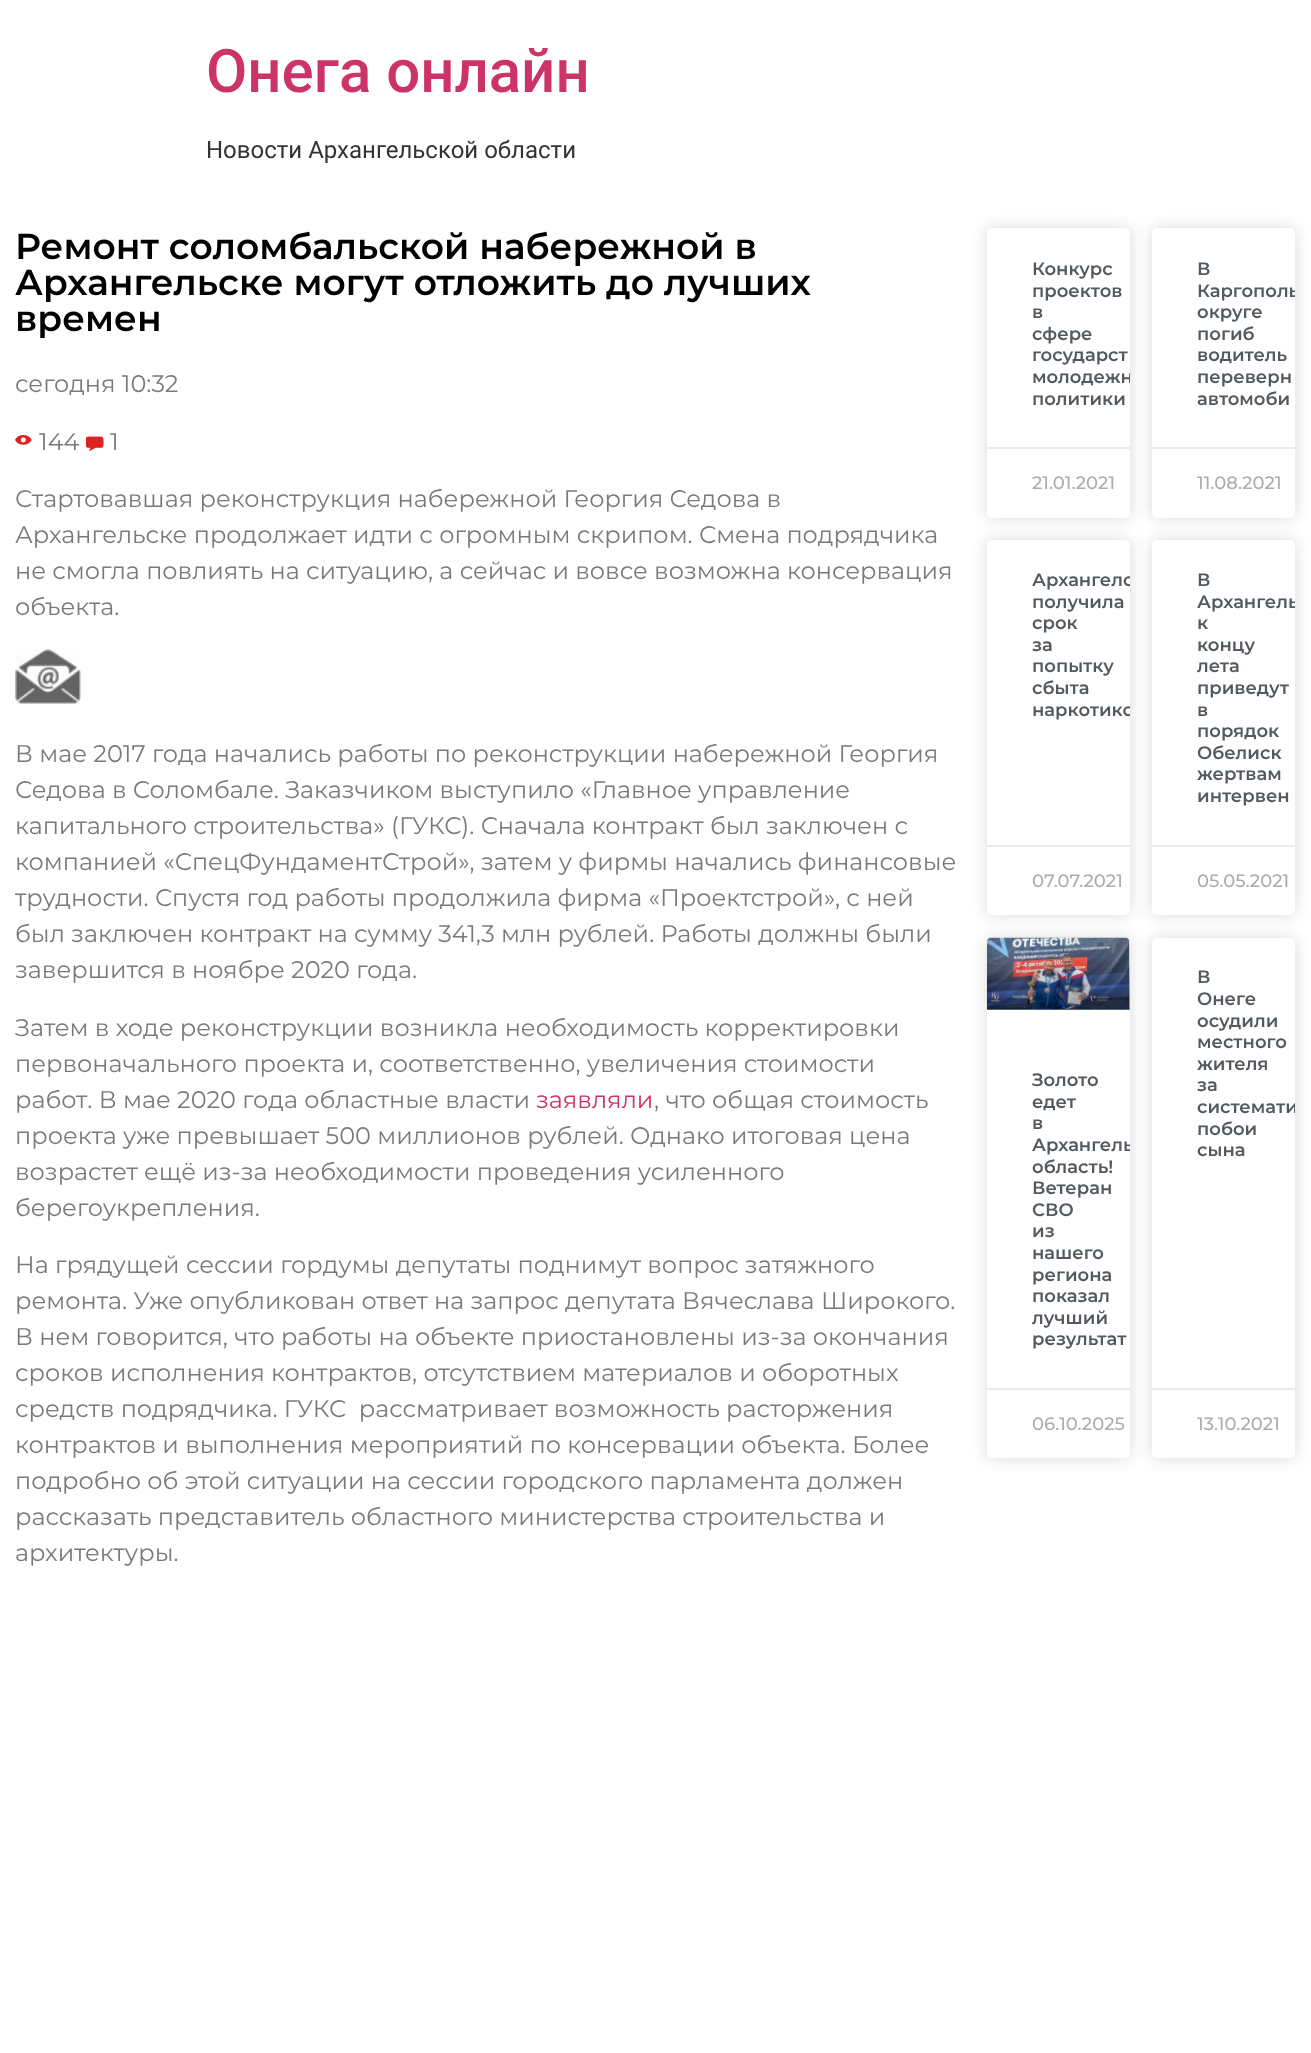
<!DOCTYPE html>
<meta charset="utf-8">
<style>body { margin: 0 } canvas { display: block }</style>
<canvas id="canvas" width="1311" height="2053"></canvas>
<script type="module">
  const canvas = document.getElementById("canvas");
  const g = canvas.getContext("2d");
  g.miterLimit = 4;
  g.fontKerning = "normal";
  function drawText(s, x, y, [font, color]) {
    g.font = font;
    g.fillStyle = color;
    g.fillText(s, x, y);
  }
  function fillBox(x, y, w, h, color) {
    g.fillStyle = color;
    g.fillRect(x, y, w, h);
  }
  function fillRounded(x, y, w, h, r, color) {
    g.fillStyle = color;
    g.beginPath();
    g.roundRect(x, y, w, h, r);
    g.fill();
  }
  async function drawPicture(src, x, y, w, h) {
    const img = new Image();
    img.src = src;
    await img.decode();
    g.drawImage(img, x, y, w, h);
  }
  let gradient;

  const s1 = ["500 60px Roboto", "#CC3366"];
  const s2 = ["24px Roboto", "#333333"];
  const s3 = ["600 36px Montserrat", "#000000"];
  const s4 = ["24px Montserrat", "#7A7A7A"];
  const s5 = ["24px Montserrat", "#CC3366"];
  const s6 = ["600 18px Montserrat", "#54595F"];
  const s7 = ["500 18px Montserrat", "#ADADAD"];

  fillBox(0, 0, 1311, 2053, "#FFFFFF");
  drawText("Онега онлайн", 206, 92, s1);
  drawText("Новости Архангельской области", 206, 158, s2);
  drawText("Ремонт соломбальской набережной в", 15, 259, s3);
  drawText("Архангельске могут отложить до лучших", 15, 295, s3);
  drawText("времен", 15, 331, s3);
  drawText("сегодня 10:32", 15, 392, s4);
  await drawPicture("pic1.png", 15, 435, 17, 10);
  drawText("144", 39, 450, s4);
  await drawPicture("pic2.png", 86, 436, 18, 16);
  drawText("1", 110, 450, s4);
  drawText("Стартовавшая реконструкция набережной Георгия Седова в", 15, 507, s4);
  drawText("Архангельске продолжает идти с огромным скрипом. Смена подрядчика", 15, 543, s4);
  drawText("не смогла повлиять на ситуацию, а сейчас и вовсе возможна консервация", 15, 579, s4);
  drawText("объекта.", 15, 615, s4);
  await drawPicture("pic3.png", 15, 649, 66, 55);
  drawText("В мае 2017 года начались работы по реконструкции набережной Георгия", 15, 762, s4);
  drawText("Седова в Соломбале. Заказчиком выступило «Главное управление", 15, 798, s4);
  drawText("капитального строительства» (ГУКС). Сначала контракт был заключен с", 15, 834, s4);
  drawText("компанией «СпецФундаментСтрой», затем у фирмы начались финансовые", 15, 870, s4);
  drawText("трудности. Спустя год работы продолжила фирма «Проектстрой», с ней", 15, 906, s4);
  drawText("был заключен контракт на сумму 341,3 млн рублей. Работы должны были", 15, 942, s4);
  drawText("завершится в ноябре 2020 года.", 15, 978, s4);
  drawText("Затем в ходе реконструкции возникла необходимость корректировки", 15, 1036, s4);
  drawText("первоначального проекта и, соответственно, увеличения стоимости", 15, 1072, s4);
  drawText("работ. В мае 2020 года областные власти", 15, 1108, s4);
  drawText("заявляли", 536, 1108, s5);
  drawText(", что общая стоимость", 654, 1108, s4);
  drawText("проекта уже превышает 500 миллионов рублей. Однако итоговая цена", 15, 1144, s4);
  drawText("возрастет ещё из-за необходимости проведения усиленного", 15, 1180, s4);
  drawText("берегоукрепления.", 15, 1216, s4);
  drawText("На грядущей сессии гордумы депутаты поднимут вопрос затяжного", 15, 1273, s4);
  drawText("ремонта. Уже опубликован ответ на запрос депутата Вячеслава Широкого.", 15, 1309, s4);
  drawText("В нем говорится, что работы на объекте приостановлены из-за окончания", 15, 1345, s4);
  drawText("сроков исполнения контрактов, отсутствием материалов и оборотных", 15, 1381, s4);
  drawText("средств подрядчика. ГУКС  рассматривает возможность расторжения", 15, 1417, s4);
  drawText("контрактов и выполнения мероприятий по консервации объекта. Более", 15, 1453, s4);
  drawText("подробно об этой ситуации на сессии городского парламента должен", 15, 1489, s4);
  drawText("рассказать представитель областного министерства строительства и", 15, 1525, s4);
  drawText("архитектуры.", 15, 1561, s4);
  g.fillStyle = "rgba(0, 0, 0, 0.15)";
  g.filter = "blur(7.5px)";
  g.beginPath();
  g.roundRect(987, 228, 143, 290, 5);
  g.fill();
  g.filter = "none";
  fillRounded(987, 228, 143, 290, 5, "#FFFFFF");
  drawText("Конкурс", 1032, 275, s6);
  drawText("проектов", 1032, 297, s6);
  drawText("в", 1032, 318, s6);
  drawText("сфере", 1032, 340, s6);
  drawText("государст", 1032, 361, s6);
  g.save();
  g.beginPath();
  g.roundRect(987, 228, 143, 290, 5);
  g.clip();
  drawText("молодежн", 1032, 383, s6);
  g.restore();
  drawText("политики", 1032, 405, s6);
  fillBox(987, 447, 143, 2, "#EAEAEA");
  drawText("21.01.2021", 1032, 489, s7);
  g.fillStyle = "rgba(0, 0, 0, 0.15)";
  g.filter = "blur(7.5px)";
  g.beginPath();
  g.roundRect(1152, 228, 143, 290, 5);
  g.fill();
  g.filter = "none";
  fillRounded(1152, 228, 143, 290, 5, "#FFFFFF");
  drawText("В", 1197, 275, s6);
  g.save();
  g.beginPath();
  g.roundRect(1152, 228, 143, 290, 5);
  g.clip();
  drawText("Каргополь", 1197, 297, s6);
  g.restore();
  drawText("округе", 1197, 318, s6);
  drawText("погиб", 1197, 340, s6);
  drawText("водитель", 1197, 361, s6);
  drawText("переверн", 1197, 383, s6);
  drawText("автомоби", 1197, 405, s6);
  fillBox(1152, 447, 143, 2, "#EAEAEA");
  drawText("11.08.2021", 1197, 489, s7);
  g.fillStyle = "rgba(0, 0, 0, 0.15)";
  g.filter = "blur(7.5px)";
  g.beginPath();
  g.roundRect(987, 540, 143, 375, 5);
  g.fill();
  g.filter = "none";
  fillRounded(987, 540, 143, 375, 5, "#FFFFFF");
  g.save();
  g.beginPath();
  g.roundRect(987, 540, 143, 375, 5);
  g.clip();
  drawText("Архангело", 1032, 586, s6);
  g.restore();
  drawText("получила", 1032, 608, s6);
  drawText("срок", 1032, 629, s6);
  drawText("за", 1032, 651, s6);
  drawText("попытку", 1032, 672, s6);
  drawText("сбыта", 1032, 694, s6);
  g.save();
  g.beginPath();
  g.roundRect(987, 540, 143, 375, 5);
  g.clip();
  drawText("наркотико", 1032, 716, s6);
  g.restore();
  fillBox(987, 845, 143, 2, "#EAEAEA");
  drawText("07.07.2021", 1032, 887, s7);
  g.fillStyle = "rgba(0, 0, 0, 0.15)";
  g.filter = "blur(7.5px)";
  g.beginPath();
  g.roundRect(1152, 540, 143, 375, 5);
  g.fill();
  g.filter = "none";
  fillRounded(1152, 540, 143, 375, 5, "#FFFFFF");
  drawText("В", 1197, 586, s6);
  g.save();
  g.beginPath();
  g.roundRect(1152, 540, 143, 375, 5);
  g.clip();
  drawText("Архангель", 1197, 608, s6);
  g.restore();
  drawText("к", 1197, 629, s6);
  drawText("концу", 1197, 651, s6);
  drawText("лета", 1197, 672, s6);
  drawText("приведут", 1197, 694, s6);
  drawText("в", 1197, 716, s6);
  drawText("порядок", 1197, 737, s6);
  drawText("Обелиск", 1197, 759, s6);
  drawText("жертвам", 1197, 780, s6);
  drawText("интервен", 1197, 802, s6);
  fillBox(1152, 845, 143, 2, "#EAEAEA");
  drawText("05.05.2021", 1197, 887, s7);
  g.fillStyle = "rgba(0, 0, 0, 0.15)";
  g.filter = "blur(7.5px)";
  g.beginPath();
  g.roundRect(987, 938, 143, 520, 5);
  g.fill();
  g.filter = "none";
  fillRounded(987, 938, 143, 520, 5, "#FFFFFF");
  await drawPicture("pic4.png", 987, 937, 143, 73);
  gradient = g.createLinearGradient(1058, 1010, 1058, 938);
  gradient.addColorStop(0, "rgba(0, 0, 0, 0.35)");
  gradient.addColorStop(0.75, "rgba(0, 0, 0, 0)");
  g.fillStyle = gradient;
  g.fillRect(987, 959, 143, 51);
  drawText("Золото", 1032, 1086, s6);
  drawText("едет", 1032, 1108, s6);
  drawText("в", 1032, 1129, s6);
  g.save();
  g.beginPath();
  g.roundRect(987, 938, 143, 520, 5);
  g.clip();
  drawText("Архангель", 1032, 1151, s6);
  g.restore();
  drawText("область!", 1032, 1173, s6);
  drawText("Ветеран", 1032, 1194, s6);
  drawText("СВО", 1032, 1216, s6);
  drawText("из", 1032, 1237, s6);
  drawText("нашего", 1032, 1259, s6);
  drawText("региона", 1032, 1281, s6);
  drawText("показал", 1032, 1302, s6);
  drawText("лучший", 1032, 1324, s6);
  drawText("результат", 1032, 1345, s6);
  fillBox(987, 1388, 143, 2, "#EAEAEA");
  drawText("06.10.2025", 1032, 1430, s7);
  g.fillStyle = "rgba(0, 0, 0, 0.15)";
  g.filter = "blur(7.5px)";
  g.beginPath();
  g.roundRect(1152, 938, 143, 520, 5);
  g.fill();
  g.filter = "none";
  fillRounded(1152, 938, 143, 520, 5, "#FFFFFF");
  drawText("В", 1197, 983, s6);
  drawText("Онеге", 1197, 1005, s6);
  drawText("осудили", 1197, 1027, s6);
  drawText("местного", 1197, 1048, s6);
  drawText("жителя", 1197, 1070, s6);
  drawText("за", 1197, 1091, s6);
  g.save();
  g.beginPath();
  g.roundRect(1152, 938, 143, 520, 5);
  g.clip();
  drawText("системати", 1197, 1113, s6);
  g.restore();
  drawText("побои", 1197, 1135, s6);
  drawText("сына", 1197, 1156, s6);
  fillBox(1152, 1388, 143, 2, "#EAEAEA");
  drawText("13.10.2021", 1197, 1430, s7);
</script>
